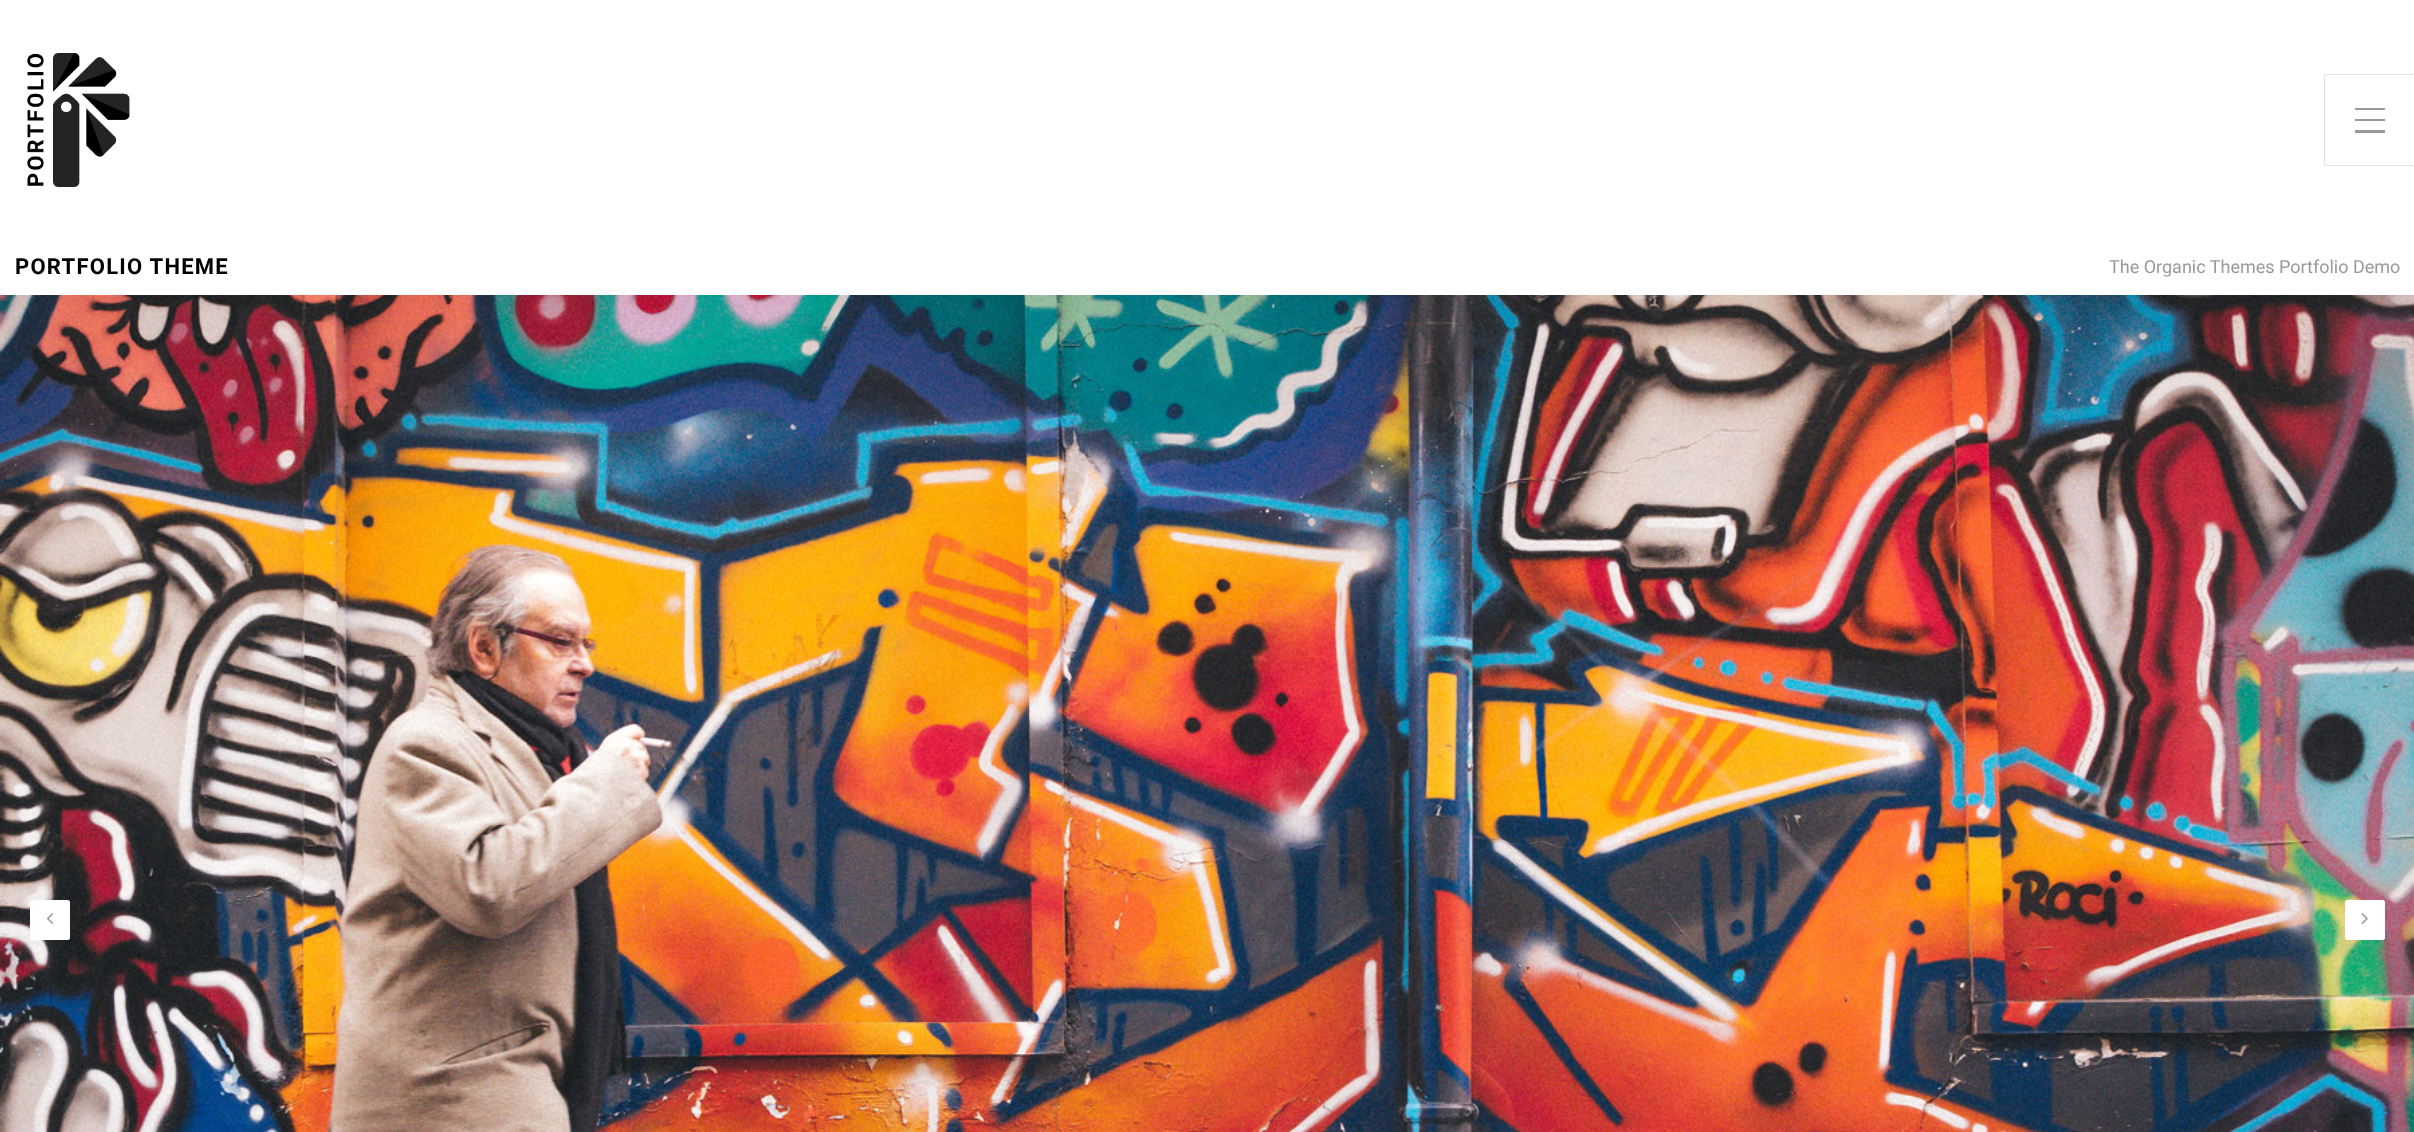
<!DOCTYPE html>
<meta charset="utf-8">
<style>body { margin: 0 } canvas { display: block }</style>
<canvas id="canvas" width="2414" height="1132"></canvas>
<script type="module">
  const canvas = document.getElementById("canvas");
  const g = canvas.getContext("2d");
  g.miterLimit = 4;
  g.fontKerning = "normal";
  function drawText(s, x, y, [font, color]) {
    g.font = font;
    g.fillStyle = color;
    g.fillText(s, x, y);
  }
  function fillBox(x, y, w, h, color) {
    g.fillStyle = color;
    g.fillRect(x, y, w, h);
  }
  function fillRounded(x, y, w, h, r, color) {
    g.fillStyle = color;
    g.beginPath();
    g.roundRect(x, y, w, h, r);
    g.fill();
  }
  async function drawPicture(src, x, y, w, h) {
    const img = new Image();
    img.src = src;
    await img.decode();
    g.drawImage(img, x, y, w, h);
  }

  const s1 = ["bold 22px Roboto", "#000000"];
  const s2 = ["18px Roboto", "#999999"];

  fillBox(0, 0, 2414, 1132, "#FFFFFF");
  await drawPicture("pic1.png", 27, 53, 103, 134);
  fillBox(2325, 74, 89, 1, "#E0E0E0");
  fillBox(2325, 165, 89, 1, "#E0E0E0");
  fillBox(2324, 75, 1, 90, "#E0E0E0");
  fillBox(2355, 108, 30, 2, "#999999");
  fillBox(2355, 119, 30, 2, "#999999");
  fillBox(2355, 130, 30, 3, "#999999");
  g.letterSpacing = "1.25px";
  drawText("PORTFOLIO THEME", 15, 274, s1);
  g.letterSpacing = "0px";
  drawText("The Organic Themes Portfolio Demo", 2109, 273, s2);
  await drawPicture("pic2.png", 0, 295, 2414, 837);
  fillRounded(30, 900, 40, 40, 2.5, "#FFFFFF");
  await drawPicture("pic3.png", 46, 913, 8, 11);
  fillRounded(2345, 900, 40, 40, 2.5, "#FFFFFF");
  await drawPicture("pic4.png", 2361, 913, 7, 11);
</script>
